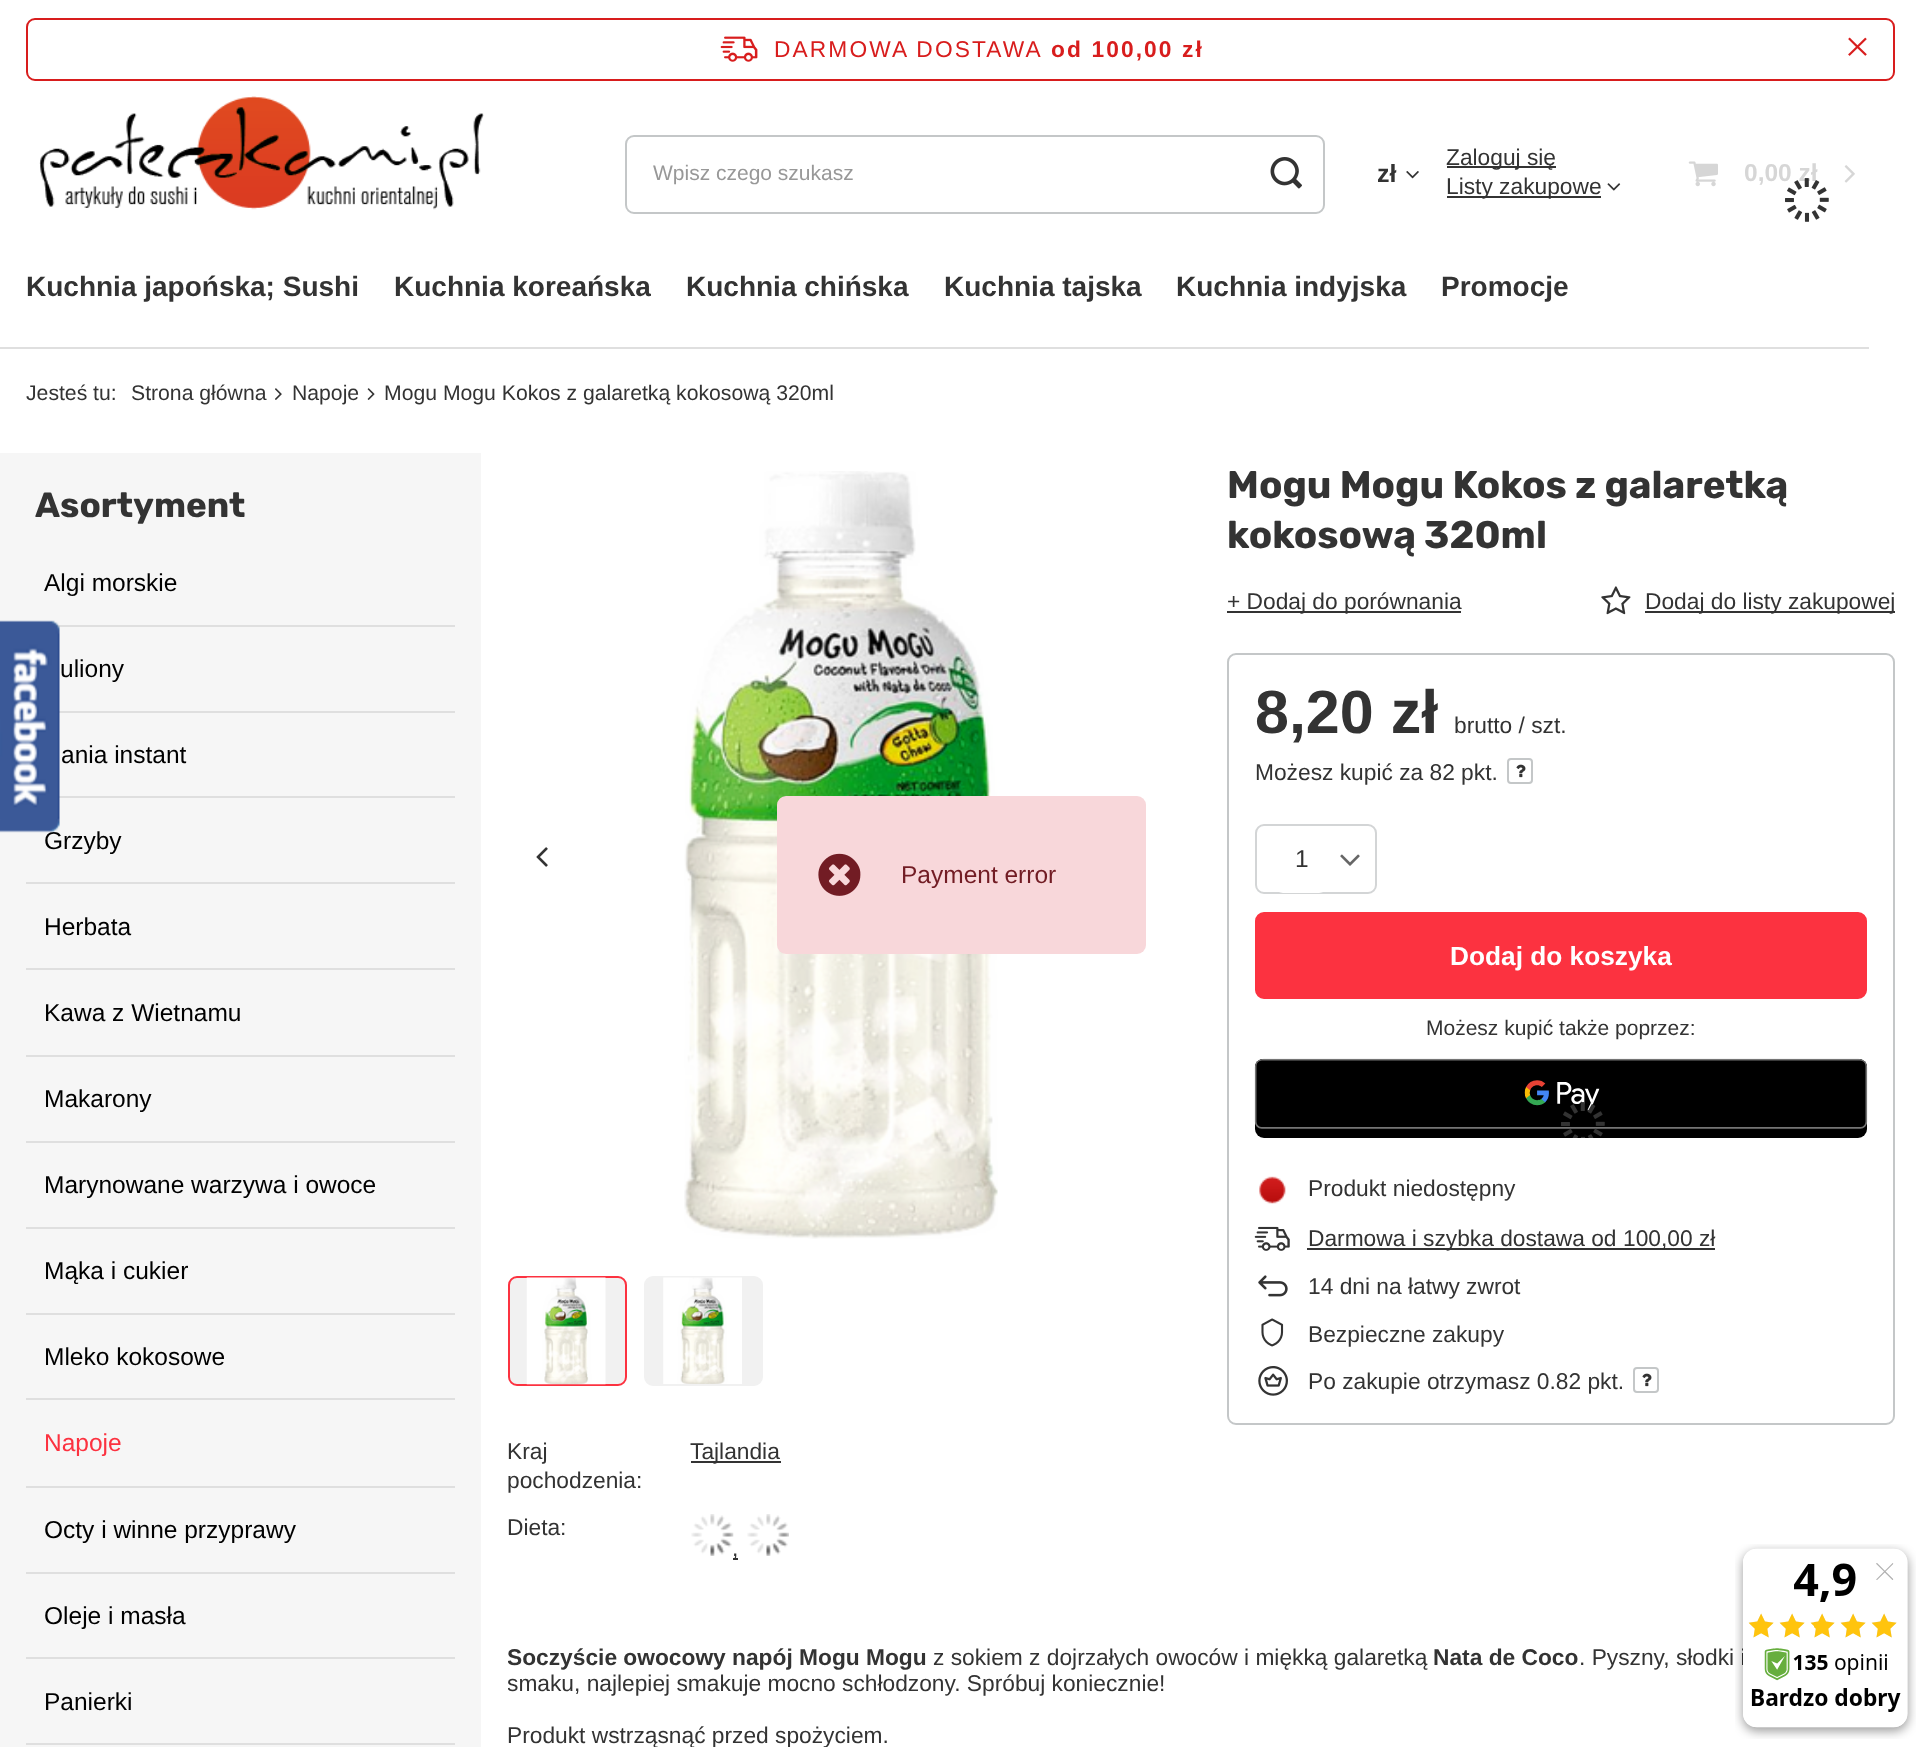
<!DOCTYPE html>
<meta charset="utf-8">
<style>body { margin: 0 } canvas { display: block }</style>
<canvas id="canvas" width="1920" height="1747"></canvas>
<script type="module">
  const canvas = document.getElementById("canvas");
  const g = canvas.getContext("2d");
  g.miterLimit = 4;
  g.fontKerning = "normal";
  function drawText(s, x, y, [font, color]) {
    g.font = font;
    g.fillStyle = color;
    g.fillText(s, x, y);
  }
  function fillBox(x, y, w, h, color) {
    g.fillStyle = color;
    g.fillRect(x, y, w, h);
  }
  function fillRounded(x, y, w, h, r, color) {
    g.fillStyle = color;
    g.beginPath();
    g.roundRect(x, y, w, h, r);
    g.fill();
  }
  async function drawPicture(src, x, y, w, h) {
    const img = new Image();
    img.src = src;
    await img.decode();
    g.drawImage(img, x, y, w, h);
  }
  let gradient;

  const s1 = ["22.75px Liberation Sans", "#D81D1D"];
  const s2 = ["bold 22.75px Liberation Sans", "#D81D1D"];
  const s3 = ["21px Liberation Sans", "#989898"];
  const s4 = ["bold 25px Liberation Sans", "#333333"];
  const s5 = ["22.75px Liberation Sans", "#333333"];
  const s6 = ["bold 24.5px Liberation Sans", "#D6D6D6"];
  const s7 = ["bold 28px Liberation Sans", "#333333"];
  const s8 = ["21.2px Liberation Sans", "#333333"];
  const s9 = ["bold 35px Rubik", "#333333"];
  const s10 = ["24.5px Liberation Sans", "#000000"];
  const s11 = ["24.5px Liberation Sans", "#FC3240"];
  const s12 = ["bold 38.5px Rubik", "#333333"];
  const s13 = ["bold 61px Liberation Sans", "#333333"];
  const s14 = ["24.5px Liberation Sans", "#333333"];
  const s15 = ["bold 26.25px Liberation Sans", "#FFFFFF"];
  const s16 = ["21px Liberation Sans", "#333333"];
  const s17 = ["bold 22.75px Liberation Sans", "#333333"];
  const s18 = ["24.5px Liberation Sans", "#721C24"];

  fillBox(0, 0, 1920, 1747, "#FFFFFF");
  g.beginPath();
  g.roundRect(27, 19, 1867, 61, 8);
  g.strokeStyle = "#D81D1D";
  g.lineWidth = 2;
  g.stroke();
  await drawPicture("pic1.png", 720, 36, 38, 26);
  g.letterSpacing = "2.1px";
  drawText("DARMOWA DOSTAWA", 774, 57, s1);
  drawText("od 100,00 zł", 1051, 57, s2);
  await drawPicture("pic2.png", 1848, 37, 19, 19);
  await drawPicture("pic3.png", 39, 96, 445, 114);
  g.beginPath();
  g.roundRect(626, 136, 698, 77, 8);
  g.strokeStyle = "#C4C7C8";
  g.stroke();
  g.letterSpacing = "0px";
  drawText("Wpisz czego szukasz", 653, 180, s3);
  await drawPicture("pic4.png", 1270, 157, 32, 32);
  drawText("zł", 1377, 182, s4);
  await drawPicture("pic5.png", 1406, 171, 13, 8);
  fillBox(1447, 166, 109, 2, "#333333");
  drawText("Zaloguj się", 1446, 165, s5);
  fillBox(1447, 196, 154, 2, "#333333");
  drawText("Listy zakupowe", 1446, 194, s5);
  await drawPicture("pic6.png", 1607, 183, 14, 8);
  await drawPicture("pic7.png", 1688, 161, 30, 26);
  drawText("0,00 zł", 1744, 181, s6);
  await drawPicture("pic8.png", 1844, 165, 11, 18);
  await drawPicture("pic9.png", 1785, 178, 44, 44);
  drawText("Kuchnia japońska; Sushi", 26, 296, s7);
  drawText("Kuchnia koreańska", 394, 296, s7);
  drawText("Kuchnia chińska", 686, 296, s7);
  drawText("Kuchnia tajska", 944, 296, s7);
  drawText("Kuchnia indyjska", 1176, 296, s7);
  drawText("Promocje", 1441, 296, s7);
  fillBox(0, 347, 1869, 2, "#DFDFDF");
  drawText("Jesteś tu:", 26, 400, s8);
  drawText("Strona główna", 131, 400, s8);
  await drawPicture("pic10.png", 275, 388, 7, 12);
  drawText("Napoje", 292, 400, s8);
  await drawPicture("pic11.png", 367, 388, 8, 12);
  drawText("Mogu Mogu Kokos z galaretką kokosową 320ml", 384, 400, s8);
  gradient = g.createLinearGradient(241, 453, 241, 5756);
  gradient.addColorStop(0.5, "#F6F6F6");
  gradient.addColorStop(1, "#FFFFFF");
  g.fillStyle = gradient;
  g.fillRect(0, 453, 481, 1294);
  drawText("Asortyment", 35, 517, s9);
  fillBox(54, 625, 401, 2, "#DFDFDF");
  drawText("Algi morskie", 44, 591, s10);
  fillBox(59, 711, 396, 2, "#DFDFDF");
  drawText("uliony", 60, 677, s10);
  fillBox(59, 796, 396, 2, "#DFDFDF");
  drawText("ania instant", 61, 763, s10);
  fillBox(26, 882, 429, 2, "#DFDFDF");
  drawText("Grzyby", 44, 849, s10);
  fillBox(26, 968, 429, 2, "#DFDFDF");
  drawText("Herbata", 44, 935, s10);
  fillBox(26, 1055, 429, 2, "#DFDFDF");
  drawText("Kawa z Wietnamu", 44, 1021, s10);
  fillBox(26, 1141, 429, 2, "#DFDFDF");
  drawText("Makarony", 44, 1107, s10);
  fillBox(26, 1227, 429, 2, "#DFDFDF");
  drawText("Marynowane warzywa i owoce", 44, 1193, s10);
  fillBox(26, 1313, 429, 2, "#DFDFDF");
  drawText("Mąka i cukier", 44, 1279, s10);
  fillBox(26, 1398, 429, 2, "#DFDFDF");
  drawText("Mleko kokosowe", 44, 1365, s10);
  fillBox(26, 1486, 429, 2, "#DFDFDF");
  drawText("Napoje", 44, 1451, s11);
  fillBox(26, 1572, 429, 2, "#DFDFDF");
  drawText("Octy i winne przyprawy", 44, 1538, s10);
  fillBox(26, 1657, 429, 2, "#DFDFDF");
  drawText("Oleje i masła", 44, 1624, s10);
  fillBox(26, 1743, 429, 2, "#DFDFDF");
  drawText("Panierki", 44, 1710, s10);
  await drawPicture("pic12.png", 536, 847, 12, 20);
  await drawPicture("pic13.png", 684, 471, 314, 768);
  g.fillStyle = "#F1F1F1";
  g.beginPath();
  g.roundRect(509, 1277, 117, 108, 8);
  g.fill();
  g.strokeStyle = "#FC3240";
  g.stroke();
  await drawPicture("pic14.png", 526, 1277, 80, 108);
  g.beginPath();
  g.roundRect(645, 1277, 117, 108, 8);
  g.fill();
  g.strokeStyle = "#F1F1F1";
  g.stroke();
  await drawPicture("pic15.png", 663, 1277, 79, 107);
  drawText("Mogu Mogu Kokos z galaretką", 1227, 498, s12);
  drawText("kokosową 320ml", 1227, 548, s12);
  fillBox(1227, 611, 234, 2, "#333333");
  drawText("+ Dodaj do porównania", 1227, 609, s5);
  await drawPicture("pic16.png", 1601, 586, 30, 29);
  fillBox(1645, 611, 250, 2, "#333333");
  drawText("Dodaj do listy zakupowej", 1645, 609, s5);
  g.beginPath();
  g.roundRect(1228, 654, 666, 770, 8);
  g.strokeStyle = "#C4C7C8";
  g.stroke();
  drawText("8,20 zł", 1255, 733, s13);
  drawText("brutto / szt.", 1454, 733, s5);
  drawText("Możesz kupić za 82 pkt.", 1255, 780, s5);
  g.beginPath();
  g.roundRect(1508, 759, 24, 24, 3);
  g.stroke();
  await drawPicture("pic17.png", 1516, 764, 10, 14);
  g.beginPath();
  g.roundRect(1256, 825, 120, 68, 8);
  g.strokeStyle = "#D3D5D6";
  g.stroke();
  await drawPicture("pic18.png", 1340, 854, 20, 12);
  fillRounded(1274, 826, 54, 67, 9, "#FFFFFF");
  drawText("1", 1295, 867, s14);
  g.fillStyle = "#FC3240";
  g.beginPath();
  g.roundRect(1256, 913, 610, 85, 8);
  g.fill();
  g.strokeStyle = "#FC3240";
  g.stroke();
  drawText("Dodaj do koszyka", 1450, 965, s15);
  drawText("Możesz kupić także poprzez:", 1426, 1035, s16);
  fillRounded(1255, 1059, 612, 79, 9, "#000000");
  await drawPicture("pic19.png", 1254, 1058, 614, 71);
  await drawPicture("pic20.png", 1561, 1102, 44, 36);
  await drawPicture("pic21.png", 1259, 1176, 27, 28);
  drawText("Produkt niedostępny", 1308, 1196, s5);
  await drawPicture("pic22.png", 1254, 1226, 36, 25);
  fillBox(1307, 1248, 277, 2, "#333333");
  drawText("Darmowa i szybka dostawa od", 1308, 1246, s5);
  fillBox(1584, 1248, 131, 2, "#333333");
  drawText("100,00 zł", 1623, 1246, s5);
  await drawPicture("pic23.png", 1258, 1275, 30, 22);
  drawText("14 dni na łatwy zwrot", 1308, 1294, s5);
  await drawPicture("pic24.png", 1261, 1318, 23, 29);
  drawText("Bezpieczne zakupy", 1308, 1342, s5);
  await drawPicture("pic25.png", 1258, 1366, 30, 30);
  drawText("Po zakupie otrzymasz 0.82 pkt.", 1308, 1389, s5);
  g.beginPath();
  g.roundRect(1634, 1368, 24, 24, 3);
  g.strokeStyle = "#C4C7C8";
  g.stroke();
  await drawPicture("pic17.png", 1642, 1373, 10, 14);
  drawText("Kraj", 507, 1459, s5);
  drawText("pochodzenia:", 507, 1488, s5);
  fillBox(691, 1461, 90, 2, "#333333");
  drawText("Tajlandia", 690, 1459, s5);
  drawText("Dieta:", 507, 1535, s5);
  await drawPicture("pic26.png", 691, 1514, 43, 42);
  fillBox(733, 1558, 5, 2, "#333333");
  drawText(",", 732, 1556, s5);
  await drawPicture("pic27.png", 747, 1514, 42, 42);
  g.save();
  g.beginPath();
  g.rect(508, 1617, 1387, 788);
  g.clip();
  drawText("Soczyście owocowy napój Mogu Mogu", 507, 1665, s17);
  g.restore();
  drawText("z sokiem z dojrzałych owoców i miękką galaretką", 933, 1665, s5);
  drawText("Nata de Coco", 1433, 1665, s17);
  drawText(". Pyszny, słodki i", 1579, 1665, s5);
  g.save();
  g.beginPath();
  g.rect(508, 1617, 1387, 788);
  g.clip();
  drawText("smaku, najlepiej smakuje mocno schłodzony. Spróbuj koniecznie!", 507, 1691, s5);
  g.restore();
  drawText("Produkt wstrząsnąć przed spożyciem.", 507, 1743, s5);
  await drawPicture("pic28.png", 0, 620, 60, 213);
  fillRounded(777, 796, 369, 158, 9, "#F8D7DA");
  await drawPicture("pic29.png", 818, 853, 43, 43);
  drawText("Payment error", 901, 883, s18);
  await drawPicture("pic30.png", 1735, 1544, 181, 195);
</script>
